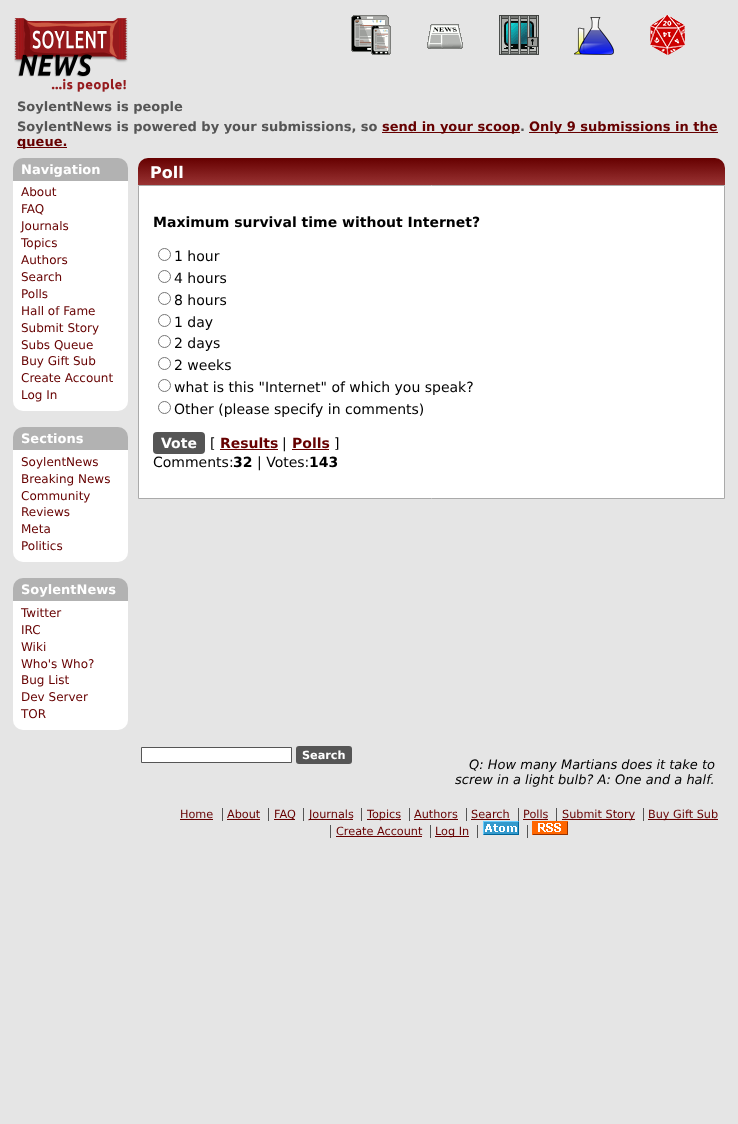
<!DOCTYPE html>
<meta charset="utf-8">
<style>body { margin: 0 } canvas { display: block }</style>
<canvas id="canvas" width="738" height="1124"></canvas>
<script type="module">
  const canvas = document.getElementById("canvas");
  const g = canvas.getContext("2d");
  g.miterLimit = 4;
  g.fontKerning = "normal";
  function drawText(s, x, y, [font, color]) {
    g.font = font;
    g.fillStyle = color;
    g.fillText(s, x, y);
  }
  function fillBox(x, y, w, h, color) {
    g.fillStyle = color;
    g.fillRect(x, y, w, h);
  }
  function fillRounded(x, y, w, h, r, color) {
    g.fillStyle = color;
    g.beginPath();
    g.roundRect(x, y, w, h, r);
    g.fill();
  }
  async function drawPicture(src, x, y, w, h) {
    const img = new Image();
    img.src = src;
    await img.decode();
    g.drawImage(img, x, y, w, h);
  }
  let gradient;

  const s1 = ["bold 13px DejaVu Sans", "#555555"];
  const s2 = ["bold 13px DejaVu Sans", "#660000"];
  const s3 = ["bold 13px DejaVu Sans", "#FFFFFF"];
  const s4 = ["12px DejaVu Sans", "#660000"];
  const s5 = ["bold 16px DejaVu Sans", "#FFFFFF"];
  const s6 = ["bold 14px DejaVu Sans", "#000000"];
  const s7 = ["14px DejaVu Sans", "#000000"];
  const s8 = ["bold 14px DejaVu Sans", "#FFFFFF"];
  const s9 = ["bold 14px DejaVu Sans", "#660000"];
  const s10 = ["bold 11.25px DejaVu Sans", "#FFFFFF"];
  const s11 = ["italic 13px DejaVu Sans", "#000000"];
  const s12 = ["11.25px DejaVu Sans", "#660000"];

  fillBox(0, 0, 738, 1124, "#E5E5E5");
  await drawPicture("pic1.png", 14, 18, 114, 74);
  await drawPicture("pic2.png", 351, 15, 40, 40);
  await drawPicture("pic3.png", 427, 24, 36, 25);
  await drawPicture("pic4.png", 499, 15, 40, 40);
  await drawPicture("pic5.png", 574, 17, 40, 38);
  await drawPicture("pic6.png", 650, 15, 35, 40);
  drawText("SoylentNews is people", 17, 111, s1);
  drawText("SoylentNews is powered by your submissions, so", 17, 131, s1);
  fillBox(382, 132, 138, 1, "#660000");
  drawText("send in your scoop", 382, 131, s2);
  drawText(".", 520, 131, s1);
  fillBox(529, 132, 189, 1, "#660000");
  drawText("Only 9 submissions in the", 529, 131, s2);
  fillBox(17, 147, 50, 1, "#660000");
  drawText("queue.", 17, 146, s2);
  g.fillStyle = "#B2B2B2";
  g.beginPath();
  g.roundRect(13, 158, 115, 23, [10, 10, 0, 0]);
  g.fill();
  drawText("Navigation", 21, 174, s3);
  g.beginPath();
  g.roundRect(13, 181, 115, 230, [0, 0, 10, 10]);
  g.fill();
  drawText("About", 21, 196, s4);
  drawText("FAQ", 21, 213, s4);
  drawText("Journals", 21, 230, s4);
  drawText("Topics", 21, 247, s4);
  drawText("Authors", 21, 264, s4);
  drawText("Search", 21, 281, s4);
  drawText("Polls", 21, 298, s4);
  drawText("Hall of Fame", 21, 315, s4);
  drawText("Submit Story", 21, 332, s4);
  drawText("Subs Queue", 21, 349, s4);
  drawText("Buy Gift Sub", 21, 365, s4);
  drawText("Create Account", 21, 382, s4);
  drawText("Log In", 21, 399, s4);
  g.fillStyle = "#B2B2B2";
  g.beginPath();
  g.roundRect(13, 427, 115, 23, [10, 10, 0, 0]);
  g.fill();
  drawText("Sections", 21, 443, s3);
  g.beginPath();
  g.roundRect(13, 450, 115, 112, [0, 0, 10, 10]);
  g.fill();
  drawText("SoylentNews", 21, 466, s4);
  drawText("Breaking News", 21, 483, s4);
  drawText("Community", 21, 500, s4);
  drawText("Reviews", 21, 516, s4);
  drawText("Meta", 21, 533, s4);
  drawText("Politics", 21, 550, s4);
  g.fillStyle = "#B2B2B2";
  g.beginPath();
  g.roundRect(13, 578, 115, 23, [10, 10, 0, 0]);
  g.fill();
  drawText("SoylentNews", 21, 594, s3);
  g.beginPath();
  g.roundRect(13, 601, 115, 129, [0, 0, 10, 10]);
  g.fill();
  drawText("Twitter", 21, 617, s4);
  drawText("IRC", 21, 634, s4);
  drawText("Wiki", 21, 651, s4);
  drawText("Who's Who?", 21, 668, s4);
  drawText("Bug List", 21, 684, s4);
  drawText("Dev Server", 21, 701, s4);
  drawText("TOR", 21, 718, s4);
  gradient = g.createLinearGradient(432, 158, 432, 185);
  gradient.addColorStop(0, "#660000");
  gradient.addColorStop(1, "#993333");
  g.fillStyle = gradient;
  g.beginPath();
  g.roundRect(138, 158, 587, 27, [10, 10, 0, 0]);
  g.fill();
  drawText("Poll", 150, 178, s5);
  g.beginPath();
  g.rect(138.5, 185.5, 586, 313);
  g.fill();
  g.strokeStyle = "#AAAAAA";
  g.stroke();
  drawText("Maximum survival time without Internet?", 153, 227, s6);
  g.beginPath();
  g.arc(164.5, 254.5, 6, 0, Math.PI * 2);
  g.strokeStyle = "#767676";
  g.stroke();
  drawText("1 hour", 174, 261, s7);
  g.beginPath();
  g.arc(164.5, 276.5, 6, 0, Math.PI * 2);
  g.stroke();
  drawText("4 hours", 174, 283, s7);
  g.beginPath();
  g.arc(164.5, 298.5, 6, 0, Math.PI * 2);
  g.stroke();
  drawText("8 hours", 174, 305, s7);
  g.beginPath();
  g.arc(164.5, 320.5, 6, 0, Math.PI * 2);
  g.stroke();
  drawText("1 day", 174, 327, s7);
  g.beginPath();
  g.arc(164.5, 341.5, 6, 0, Math.PI * 2);
  g.stroke();
  drawText("2 days", 174, 348, s7);
  g.beginPath();
  g.arc(164.5, 363.5, 6, 0, Math.PI * 2);
  g.stroke();
  drawText("2 weeks", 174, 370, s7);
  g.beginPath();
  g.arc(164.5, 385.5, 6, 0, Math.PI * 2);
  g.stroke();
  drawText("what is this \"Internet\" of which you speak?", 174, 392, s7);
  g.beginPath();
  g.arc(164.5, 407.5, 6, 0, Math.PI * 2);
  g.stroke();
  drawText("Other (please specify in comments)", 174, 414, s7);
  fillRounded(153, 432, 52, 22, 4, "#555555");
  drawText("Vote", 161, 448, s8);
  drawText("[", 210, 448, s7);
  drawText("Results", 220, 448, s9);
  fillBox(220, 449, 58, 1, "#660000");
  drawText("|", 282, 448, s7);
  drawText("Polls", 292, 448, s9);
  fillBox(292, 449, 37, 1, "#660000");
  drawText("]", 334, 448, s7);
  drawText("Comments:", 153, 467, s7);
  drawText("32", 233, 467, s6);
  drawText("| Votes:", 257, 467, s7);
  drawText("143", 309, 467, s6);
  g.fillStyle = "#FFFFFF";
  g.beginPath();
  g.rect(141.5, 747.5, 150, 15);
  g.fill();
  g.strokeStyle = "#555555";
  g.stroke();
  fillRounded(296, 746, 56, 18, 3, "#555555");
  drawText("Search", 302, 759, s10);
  drawText("Q: How many Martians does it take to", 469, 769, s11);
  drawText("screw in a light bulb? A: One and a half.", 455, 784, s11);
  drawText("Home", 180, 818, s12);
  fillBox(180, 819, 33, 1, "#660000");
  drawText("About", 227, 818, s12);
  fillBox(222, 808, 1, 13, "#555555");
  fillBox(227, 819, 33, 1, "#660000");
  fillBox(274, 819, 21, 1, "#660000");
  drawText("FAQ", 274, 818, s12);
  fillBox(268, 808, 1, 13, "#555555");
  fillBox(309, 819, 44, 1, "#660000");
  drawText("Journals", 309, 818, s12);
  fillBox(303, 808, 1, 13, "#555555");
  fillBox(367, 819, 34, 1, "#660000");
  drawText("Topics", 367, 818, s12);
  fillBox(361, 808, 1, 13, "#555555");
  drawText("Authors", 414, 818, s12);
  fillBox(409, 808, 1, 13, "#555555");
  fillBox(414, 819, 44, 1, "#660000");
  drawText("Search", 471, 818, s12);
  fillBox(466, 808, 1, 13, "#555555");
  fillBox(471, 819, 39, 1, "#660000");
  drawText("Polls", 523, 818, s12);
  fillBox(518, 808, 1, 13, "#555555");
  fillBox(523, 819, 25, 1, "#660000");
  fillBox(562, 819, 73, 1, "#660000");
  drawText("Submit Story", 562, 818, s12);
  fillBox(556, 808, 1, 13, "#555555");
  fillBox(648, 819, 70, 1, "#660000");
  drawText("Buy Gift Sub", 648, 818, s12);
  fillBox(643, 808, 1, 13, "#555555");
  drawText("Create Account", 336, 835, s12);
  fillBox(330, 825, 1, 13, "#555555");
  fillBox(336, 836, 86, 1, "#660000");
  fillBox(435, 836, 34, 1, "#660000");
  drawText("Log In", 435, 835, s12);
  fillBox(430, 825, 1, 13, "#555555");
  fillBox(477, 825, 1, 13, "#555555");
  await drawPicture("pic7.png", 483, 821, 36, 14);
  fillBox(527, 825, 1, 13, "#555555");
  await drawPicture("pic8.png", 532, 821, 36, 14);
</script>
